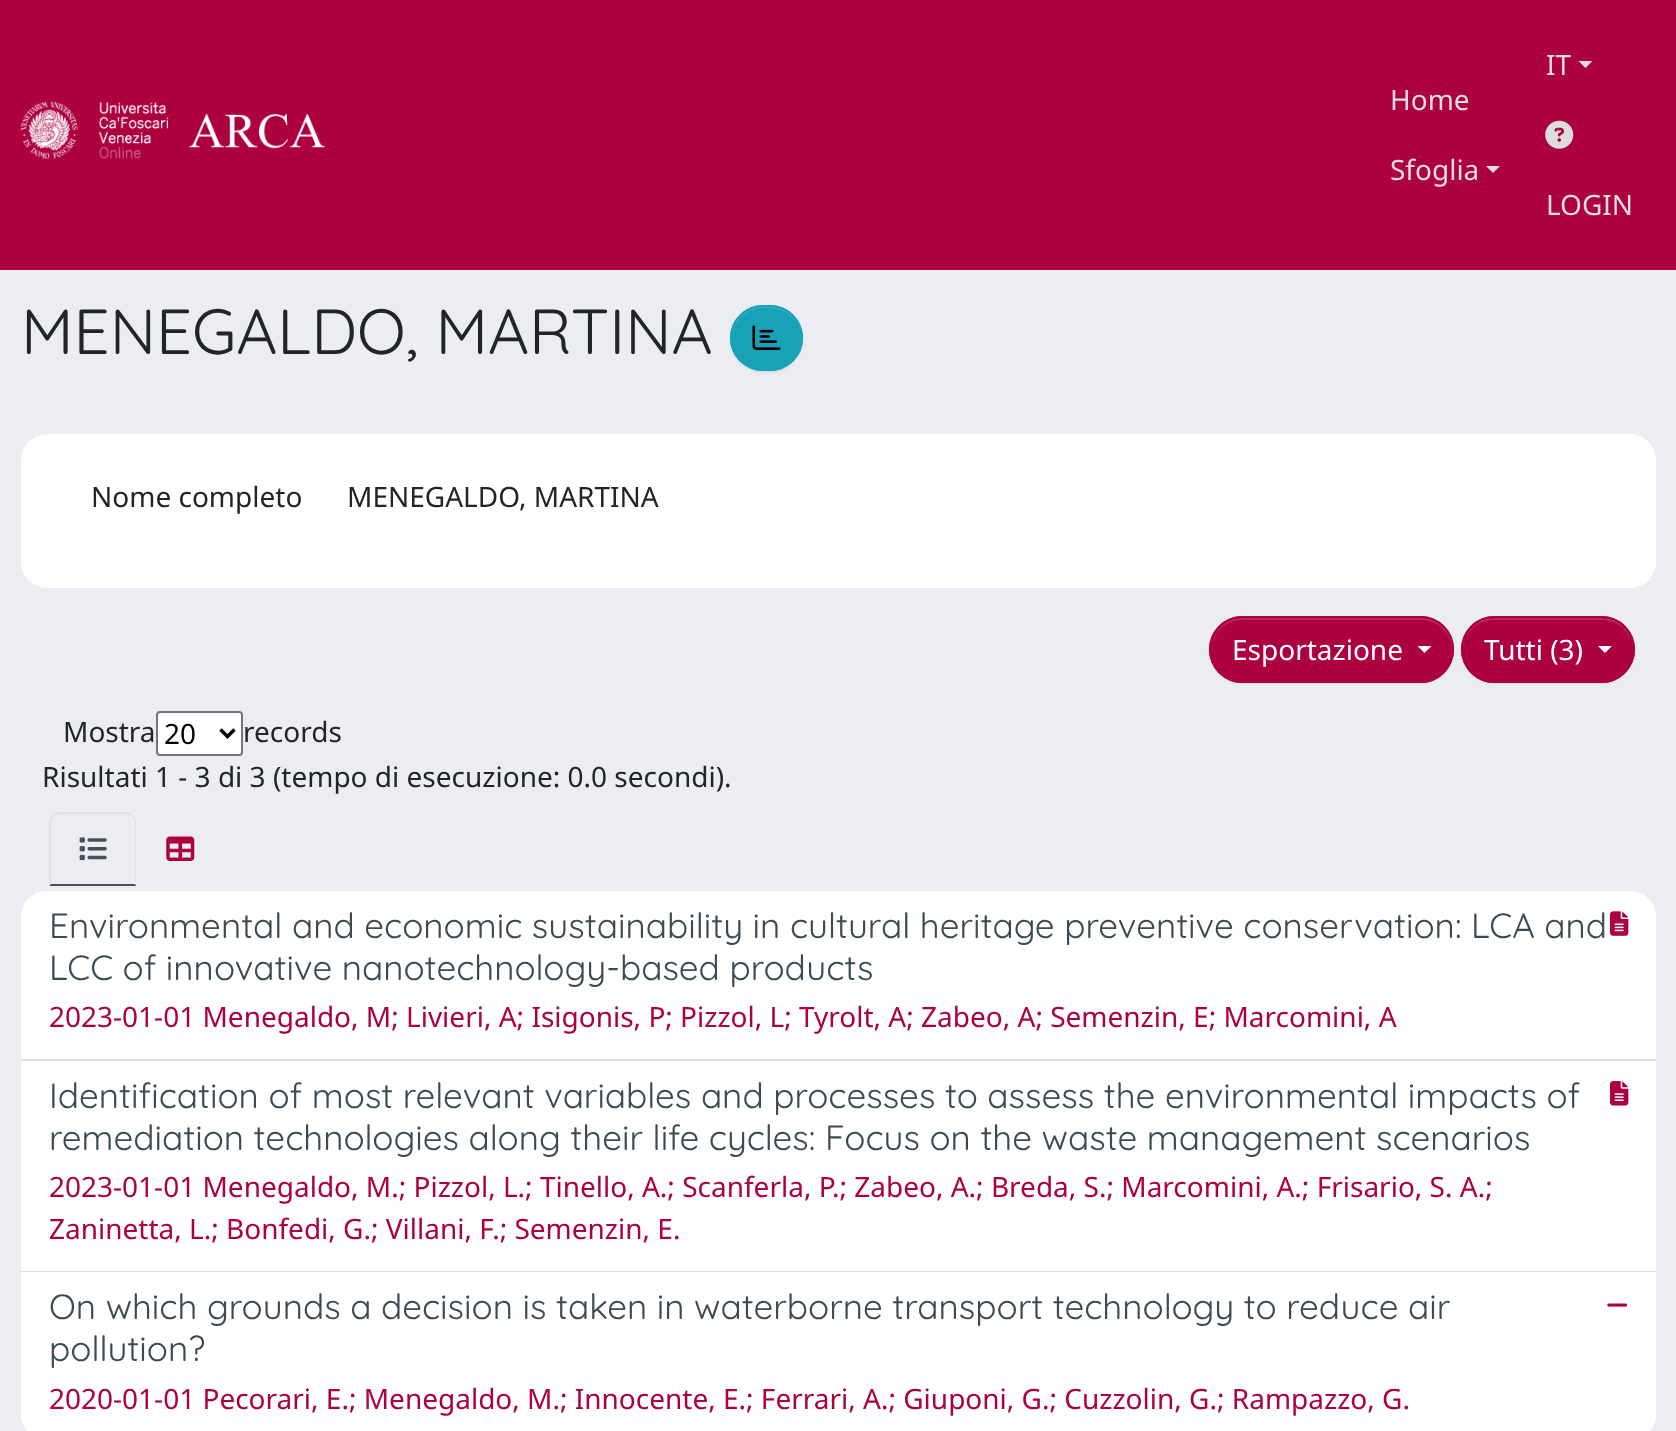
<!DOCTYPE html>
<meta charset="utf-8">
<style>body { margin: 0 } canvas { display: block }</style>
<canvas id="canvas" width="1676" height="1431"></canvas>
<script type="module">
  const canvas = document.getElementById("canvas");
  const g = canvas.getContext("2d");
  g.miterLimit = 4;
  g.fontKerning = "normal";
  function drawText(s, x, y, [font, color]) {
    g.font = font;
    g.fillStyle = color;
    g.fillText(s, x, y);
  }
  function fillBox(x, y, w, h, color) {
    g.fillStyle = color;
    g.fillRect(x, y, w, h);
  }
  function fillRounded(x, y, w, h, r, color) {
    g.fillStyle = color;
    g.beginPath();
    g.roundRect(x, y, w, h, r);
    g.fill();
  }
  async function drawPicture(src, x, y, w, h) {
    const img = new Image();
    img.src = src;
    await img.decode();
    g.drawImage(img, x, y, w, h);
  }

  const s1 = ["28px Noto Sans", "#DDDDDD"];
  const s2 = ["63.6px Quicksand", "#212529"];
  const s3 = ["28px Noto Sans", "#212529"];
  const s4 = ["28px Noto Sans", "#FFFFFF"];
  const s5 = ["28px Noto Sans", "#000000"];
  const s6 = ["35px Quicksand", "#3A4B55"];
  const s7 = ["28px Noto Sans", "#AC0040"];

  fillBox(0, 0, 1676, 1431, "#ECEDF2");
  fillBox(0, 0, 1676, 270, "#AC0040");
  await drawPicture("pic1.png", 21, 101, 304, 58);
  drawText("Home", 1390, 110, s1);
  drawText("Sfoglia", 1390, 180, s1);
  g.beginPath();
  g.moveTo(1486, 166);
  g.lineTo(1500, 166);
  g.lineTo(1493, 173);
  g.closePath();
  g.fill();
  drawText("IT", 1546, 75, s1);
  g.beginPath();
  g.moveTo(1578.5, 61);
  g.lineTo(1592.5, 61);
  g.lineTo(1585.5, 68);
  g.closePath();
  g.fill();
  await drawPicture("pic2.png", 1545, 120, 29, 29);
  drawText("LOGIN", 1546, 215, s1);
  drawText("MENEGALDO, MARTINA", 21, 354, s2);
  g.fillStyle = "rgba(0, 0, 0, 0.07)";
  g.filter = "blur(1px)";
  g.beginPath();
  g.roundRect(730, 306, 73, 67, 33.5);
  g.fill();
  g.filter = "none";
  fillRounded(730, 305, 73, 66, 33, "#17A2B8");
  g.fillStyle = "#3AB0C3";
  g.beginPath();
  g.moveTo(763, 308);
  g.lineTo(770, 308);
  g.bezierCurveTo(787, 308, 801, 321, 802, 339);
  g.bezierCurveTo(804, 295, 730, 295, 732, 339);
  g.bezierCurveTo(733, 321, 746, 308, 763, 308);
  g.closePath();
  g.fill();
  g.beginPath();
  g.roundRect(731, 306, 71, 64, 32);
  g.strokeStyle = "#17A2B8";
  g.lineWidth = 2;
  g.stroke();
  await drawPicture("pic3.png", 752, 325, 29, 25);
  fillRounded(21, 434, 1635, 154, 26, "#FFFFFF");
  drawText("Nome completo", 91, 507, s3);
  drawText("MENEGALDO, MARTINA", 347, 507, s3);
  g.fillStyle = "rgba(0, 0, 0, 0.07)";
  g.filter = "blur(1px)";
  g.beginPath();
  g.roundRect(1209, 618, 245, 66, 33);
  g.fill();
  g.filter = "none";
  fillRounded(1209, 616, 245, 67, 33.5, "#AC0040");
  g.fillStyle = "#B8265D";
  g.beginPath();
  g.moveTo(1242, 620);
  g.lineTo(1421, 620);
  g.bezierCurveTo(1438, 620, 1452, 634, 1452, 651);
  g.bezierCurveTo(1452, 658, 1450, 665, 1445, 670);
  g.bezierCurveTo(1450, 664, 1453, 657, 1453, 650);
  g.bezierCurveTo(1453, 632, 1439, 618, 1422, 618);
  g.lineTo(1242, 618);
  g.bezierCurveTo(1225, 618, 1211, 632, 1211, 650);
  g.bezierCurveTo(1211, 634, 1225, 620, 1242, 620);
  g.closePath();
  g.fill();
  g.beginPath();
  g.roundRect(1210, 617, 243, 65, 32.5);
  g.strokeStyle = "#AC0040";
  g.stroke();
  drawText("Esportazione", 1232, 660, s4);
  g.beginPath();
  g.moveTo(1417.5, 646);
  g.lineTo(1431.5, 646);
  g.lineTo(1424.5, 653);
  g.closePath();
  g.fill();
  g.fillStyle = "rgba(0, 0, 0, 0.07)";
  g.filter = "blur(1px)";
  g.beginPath();
  g.roundRect(1461, 618, 174, 66, 33);
  g.fill();
  g.filter = "none";
  fillRounded(1461, 616, 174, 67, 33.5, "#AC0040");
  g.fillStyle = "#B8265D";
  g.beginPath();
  g.moveTo(1494, 620);
  g.lineTo(1601, 620);
  g.bezierCurveTo(1619, 620, 1633, 634, 1633, 650);
  g.bezierCurveTo(1633, 632, 1619, 618, 1602, 618);
  g.lineTo(1494, 618);
  g.bezierCurveTo(1477, 618, 1463, 632, 1463, 650);
  g.bezierCurveTo(1463, 634, 1477, 620, 1494, 620);
  g.closePath();
  g.fill();
  g.beginPath();
  g.roundRect(1462, 617, 172, 65, 32.5);
  g.stroke();
  drawText("Tutti (3)", 1484, 660, s4);
  g.beginPath();
  g.moveTo(1598, 646);
  g.lineTo(1612, 646);
  g.lineTo(1605, 653);
  g.closePath();
  g.fill();
  drawText("Mostra", 63, 742, s3);
  g.fillStyle = "#FFFFFF";
  g.beginPath();
  g.roundRect(157, 712, 85, 43, 3);
  g.fill();
  g.strokeStyle = "#767676";
  g.stroke();
  g.beginPath();
  g.moveTo(220.5, 729.5);
  g.lineTo(227.5, 736.5);
  g.lineTo(234.5, 729.5);
  g.strokeStyle = "#000000";
  g.lineWidth = 3.5;
  g.stroke();
  drawText("20", 164, 744, s5);
  drawText("records", 243, 742, s3);
  drawText("Risultati 1 - 3 di 3 (tempo di esecuzione: 0.0 secondi).", 42, 787, s3);
  g.fillStyle = "#DEE2E6";
  g.beginPath();
  g.moveTo(60, 812);
  g.bezierCurveTo(57, 812, 54, 813, 52, 815);
  g.lineTo(54, 817);
  g.bezierCurveTo(55, 815, 57, 814, 60, 814);
  g.lineTo(126, 814);
  g.bezierCurveTo(128, 814, 131, 815, 132, 816);
  g.lineTo(133, 815);
  g.bezierCurveTo(132, 813, 129, 812, 126, 812);
  g.closePath();
  g.fill();
  g.beginPath();
  g.moveTo(133, 815);
  g.bezierCurveTo(135, 817, 136, 820, 136, 822);
  g.lineTo(136, 885);
  g.lineTo(135, 884);
  g.lineTo(135, 822);
  g.bezierCurveTo(135, 820, 134, 818, 132, 816);
  g.closePath();
  g.fill();
  g.fillStyle = "#495057";
  g.beginPath();
  g.moveTo(136, 886);
  g.lineTo(49, 886);
  g.lineTo(51, 884);
  g.lineTo(135, 884);
  g.closePath();
  g.fill();
  g.fillStyle = "#DEE2E6";
  g.beginPath();
  g.moveTo(49, 886);
  g.lineTo(51, 884);
  g.lineTo(51, 822);
  g.bezierCurveTo(51, 820, 52, 818, 54, 817);
  g.lineTo(52, 815);
  g.bezierCurveTo(50, 817, 49, 820, 49, 822);
  g.closePath();
  g.fill();
  await drawPicture("pic4.png", 79, 837, 28, 24);
  await drawPicture("pic5.png", 166, 836, 29, 25);
  fillRounded(21, 891, 1635, 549, 26, "#FFFFFF");
  g.beginPath();
  g.roundRect(21, 891, 1635, 170, [26, 26, 0, 0]);
  g.fill();
  fillBox(21, 1059, 1635, 2, "#DFDFDF");
  drawText("Environmental and economic sustainability in cultural heritage preventive conservation: LCA and", 49, 938, s6);
  drawText("LCC of innovative nanotechnology-based products", 49, 980, s6);
  await drawPicture("pic6.png", 1610, 911, 19, 25);
  drawText("2023-01-01 Menegaldo, M; Livieri, A; Isigonis, P; Pizzol, L; Tyrolt, A; Zabeo, A; Semenzin, E; Marcomini, A", 49, 1027, s7);
  fillBox(21, 1271, 1635, 1, "#DFDFDF");
  drawText("Identification of most relevant variables and processes to assess the environmental impacts of", 49, 1108, s6);
  drawText("remediation technologies along their life cycles: Focus on the waste management scenarios", 49, 1150, s6);
  await drawPicture("pic7.png", 1610, 1081, 19, 25);
  drawText("2023-01-01 Menegaldo, M.; Pizzol, L.; Tinello, A.; Scanferla, P.; Zabeo, A.; Breda, S.; Marcomini, A.; Frisario, S. A.;", 49, 1197, s7);
  drawText("Zaninetta, L.; Bonfedi, G.; Villani, F.; Semenzin, E.", 49, 1239, s7);
  g.fillStyle = "#FFFFFF";
  g.beginPath();
  g.moveTo(21, 1272);
  g.lineTo(1656, 1272);
  g.lineTo(1656, 1414);
  g.bezierCurveTo(1656, 1428.5, 1644.5, 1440, 1630, 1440);
  g.lineTo(47, 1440);
  g.bezierCurveTo(32.5, 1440, 21, 1428.5, 21, 1414);
  g.closePath();
  g.fill();
  drawText("On which grounds a decision is taken in waterborne transport technology to reduce air", 49, 1319, s6);
  drawText("pollution?", 49, 1361, s6);
  await drawPicture("pic8.png", 1607, 1303, 21, 4);
  drawText("2020-01-01 Pecorari, E.; Menegaldo, M.; Innocente, E.; Ferrari, A.; Giuponi, G.; Cuzzolin, G.; Rampazzo, G.", 49, 1409, s7);
</script>
